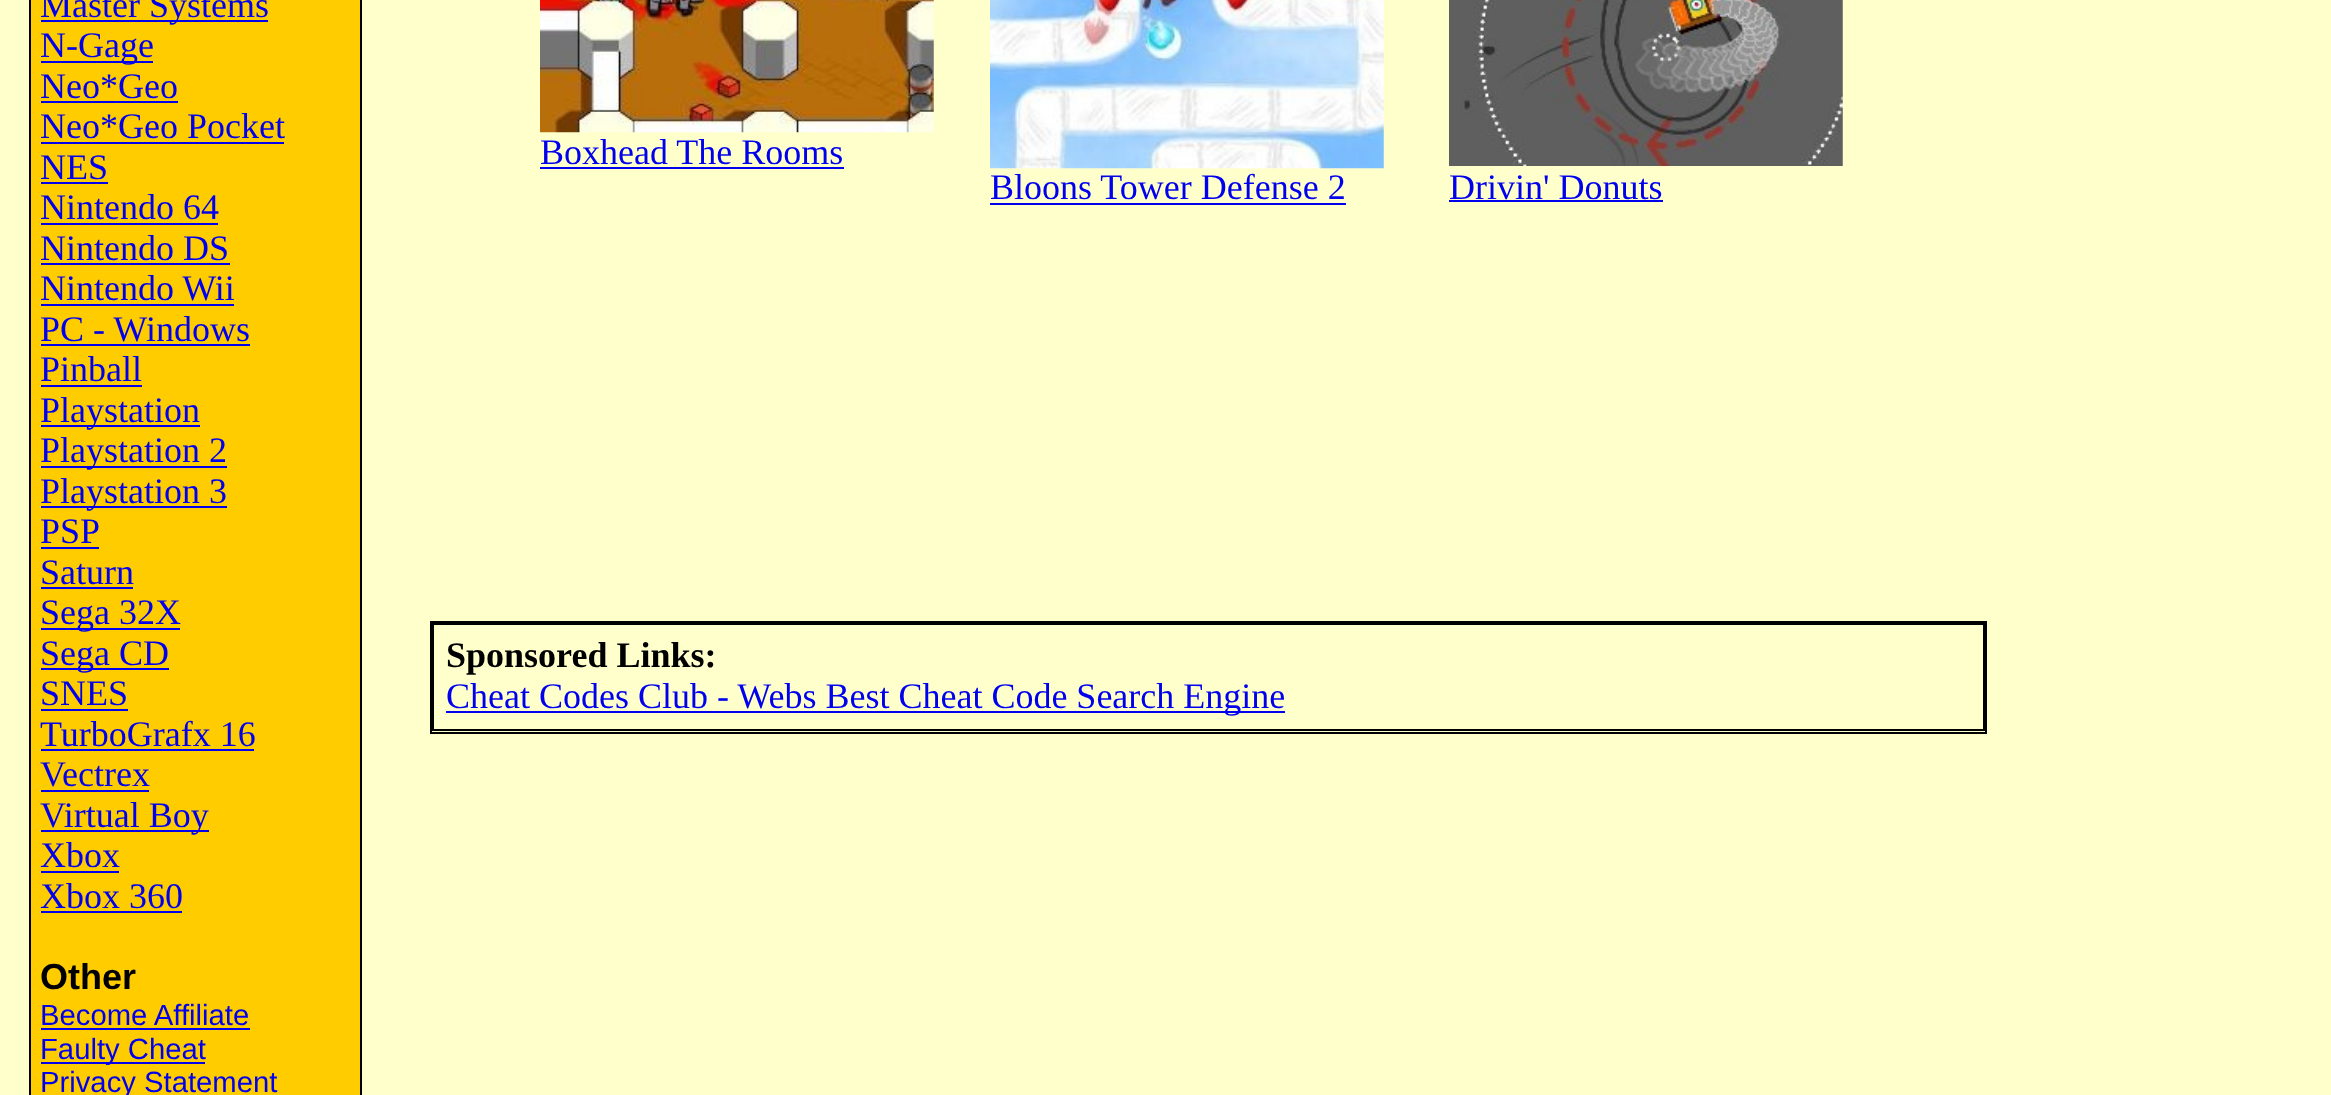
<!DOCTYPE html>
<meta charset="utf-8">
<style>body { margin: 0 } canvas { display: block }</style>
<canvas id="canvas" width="2331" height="1095"></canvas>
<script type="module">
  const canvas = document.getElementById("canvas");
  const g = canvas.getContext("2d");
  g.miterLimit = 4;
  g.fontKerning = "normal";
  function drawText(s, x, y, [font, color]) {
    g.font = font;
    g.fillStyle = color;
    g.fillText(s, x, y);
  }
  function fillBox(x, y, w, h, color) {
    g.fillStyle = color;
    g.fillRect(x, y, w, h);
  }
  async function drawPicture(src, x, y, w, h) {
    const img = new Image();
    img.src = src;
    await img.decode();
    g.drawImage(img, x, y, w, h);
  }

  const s1 = ["36px Liberation Serif", "#0000EE"];
  const s2 = ["bold 36px Liberation Sans", "#000000"];
  const s3 = ["29.25px Liberation Sans", "#0000EE"];
  const s4 = ["bold 36px Liberation Serif", "#000000"];

  fillBox(0, 0, 2331, 1095, "#FFFFCC");
  fillBox(31, 0, 329, 1095, "#FFCC00");
  fillBox(360, 0, 2, 1095, "#000000");
  fillBox(29, 0, 2, 1095, "#000000");
  fillBox(41, 20, 227, 2, "#0000EE");
  drawText("Master Systems", 40, 17, s1);
  fillBox(41, 61, 112, 2, "#0000EE");
  drawText("N-Gage", 40, 57, s1);
  drawText("Neo*Geo", 40, 98, s1);
  fillBox(41, 101, 137, 2, "#0000EE");
  drawText("Neo*Geo Pocket", 40, 138, s1);
  fillBox(41, 142, 243, 2, "#0000EE");
  drawText("NES", 40, 179, s1);
  fillBox(41, 182, 67, 2, "#0000EE");
  drawText("Nintendo 64", 40, 219, s1);
  fillBox(41, 223, 177, 2, "#0000EE");
  drawText("Nintendo DS", 40, 260, s1);
  fillBox(41, 263, 189, 2, "#0000EE");
  drawText("Nintendo Wii", 40, 300, s1);
  fillBox(41, 304, 193, 2, "#0000EE");
  drawText("PC - Windows", 40, 341, s1);
  fillBox(41, 344, 209, 2, "#0000EE");
  drawText("Pinball", 40, 381, s1);
  fillBox(41, 385, 101, 2, "#0000EE");
  fillBox(41, 425, 159, 2, "#0000EE");
  drawText("Playstation", 40, 422, s1);
  fillBox(41, 466, 186, 2, "#0000EE");
  drawText("Playstation 2", 40, 462, s1);
  fillBox(41, 506, 186, 2, "#0000EE");
  drawText("Playstation 3", 40, 503, s1);
  drawText("PSP", 40, 543, s1);
  fillBox(41, 547, 58, 2, "#0000EE");
  drawText("Saturn", 40, 584, s1);
  fillBox(41, 587, 92, 2, "#0000EE");
  fillBox(41, 628, 139, 2, "#0000EE");
  drawText("Sega 32X", 40, 624, s1);
  fillBox(41, 668, 128, 2, "#0000EE");
  drawText("Sega CD", 40, 665, s1);
  drawText("SNES", 40, 705, s1);
  fillBox(41, 709, 87, 2, "#0000EE");
  drawText("TurboGrafx 16", 40, 746, s1);
  fillBox(41, 749, 213, 2, "#0000EE");
  drawText("Vectrex", 40, 786, s1);
  fillBox(41, 790, 108, 2, "#0000EE");
  fillBox(41, 830, 168, 2, "#0000EE");
  drawText("Virtual Boy", 40, 827, s1);
  drawText("Xbox", 40, 867, s1);
  fillBox(41, 871, 78, 2, "#0000EE");
  drawText("Xbox 360", 40, 908, s1);
  fillBox(41, 911, 141, 2, "#0000EE");
  drawText("Other", 40, 989, s2);
  drawText("Become Affiliate", 40, 1025, s3);
  fillBox(41, 1028, 209, 2, "#0000EE");
  fillBox(41, 1062, 164, 2, "#0000EE");
  drawText("Faulty Cheat", 40, 1059, s3);
  drawText("Privacy Statement", 40, 1092, s3);
  await drawPicture("pic1.png", 540, 0, 394, 133);
  drawText("Boxhead The Rooms", 540, 164, s1);
  fillBox(540, 167, 304, 2, "#0000EE");
  await drawPicture("pic2.png", 990, 0, 394, 169);
  drawText("Bloons Tower Defense 2", 990, 199, s1);
  fillBox(990, 203, 356, 2, "#0000EE");
  await drawPicture("pic3.png", 1449, 0, 394, 166);
  drawText("Drivin' Donuts", 1449, 199, s1);
  fillBox(1449, 200, 214, 2, "#0000EE");
  g.strokeStyle = "#000000";
  g.lineWidth = 2;
  g.strokeRect(431, 622, 1555, 111);
  g.strokeRect(433, 624, 1551, 106);
  drawText("Sponsored Links:", 446, 667, s4);
  fillBox(446, 711, 839, 2, "#0000EE");
  drawText("Cheat Codes Club - Webs Best Cheat Code Search Engine", 446, 708, s1);
</script>
